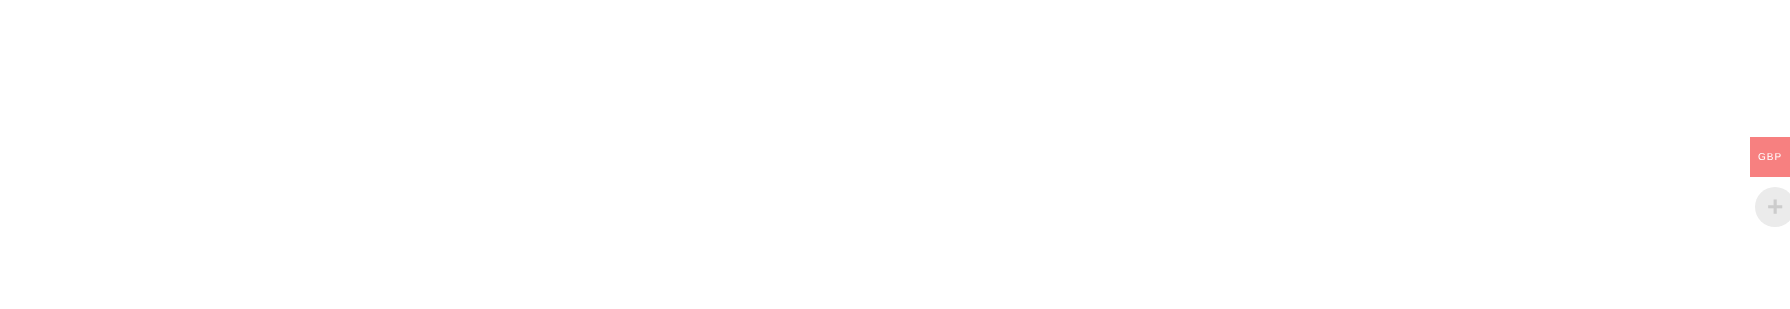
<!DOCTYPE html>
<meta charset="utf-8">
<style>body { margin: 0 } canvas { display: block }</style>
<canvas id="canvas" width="1790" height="309"></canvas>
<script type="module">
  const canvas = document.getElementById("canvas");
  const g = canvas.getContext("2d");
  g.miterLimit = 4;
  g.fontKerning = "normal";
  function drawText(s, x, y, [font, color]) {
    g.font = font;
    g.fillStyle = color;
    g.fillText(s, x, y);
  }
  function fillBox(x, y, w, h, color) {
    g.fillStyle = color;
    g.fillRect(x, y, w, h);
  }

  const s1 = ["10px Liberation Sans", "#FFFFFF"];
  const s2 = ["bold 28px Liberation Sans", "#CCCCCC"];

  fillBox(0, 0, 1790, 309, "#FFFFFF");
  fillBox(1750, 137, 40, 40, "#F78080");
  g.letterSpacing = "1px";
  drawText("GBP", 1758, 160, s1);
  g.fillStyle = "#EBEBEB";
  g.beginPath();
  g.arc(1775, 207, 20, 0, Math.PI * 2);
  g.fill();
  g.letterSpacing = "0px";
  drawText("+", 1767, 216, s2);
</script>
